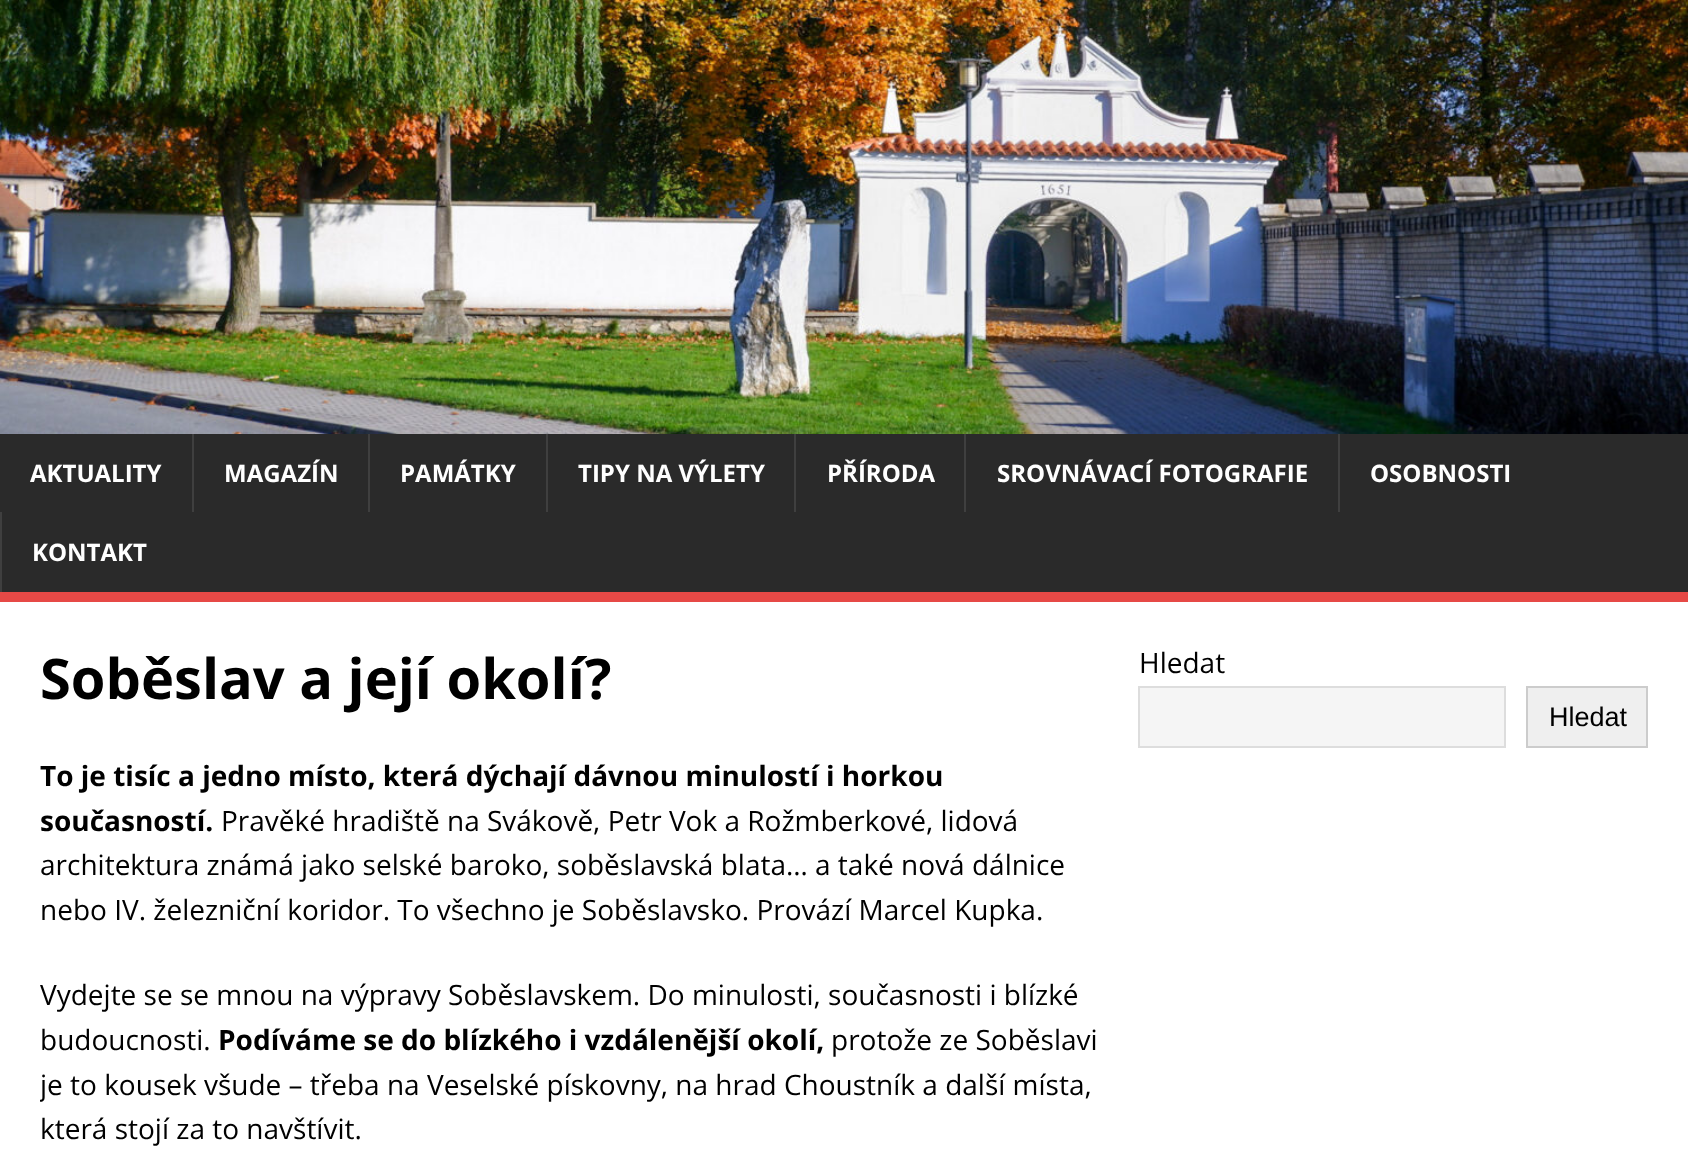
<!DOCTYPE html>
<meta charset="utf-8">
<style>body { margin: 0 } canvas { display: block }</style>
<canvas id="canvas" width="1688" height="1154"></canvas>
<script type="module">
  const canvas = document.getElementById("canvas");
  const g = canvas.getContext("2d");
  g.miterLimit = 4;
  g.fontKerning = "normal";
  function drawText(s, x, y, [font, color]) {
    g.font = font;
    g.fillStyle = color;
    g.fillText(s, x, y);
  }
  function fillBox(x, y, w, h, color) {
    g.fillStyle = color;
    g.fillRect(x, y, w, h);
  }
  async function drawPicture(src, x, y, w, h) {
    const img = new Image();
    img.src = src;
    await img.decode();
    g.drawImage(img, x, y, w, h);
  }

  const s1 = ["bold 24px Open Sans", "#FFFFFF"];
  const s2 = ["bold 56px Open Sans", "#000000"];
  const s3 = ["bold 28px Open Sans", "#000000"];
  const s4 = ["28px Open Sans", "#000000"];
  const s5 = ["27px Liberation Sans", "#000000"];

  fillBox(0, 0, 1688, 1154, "#2A2A2A");
  await drawPicture("pic1.png", 0, 0, 1688, 434);
  fillBox(0, 592, 1688, 10, "#E64946");
  drawText("AKTUALITY", 30, 482, s1);
  fillBox(192, 434, 2, 78, "#3F3F3F");
  drawText("MAGAZÍN", 224, 482, s1);
  fillBox(368, 434, 2, 78, "#3F3F3F");
  drawText("PAMÁTKY", 400, 482, s1);
  fillBox(546, 434, 2, 78, "#3F3F3F");
  drawText("TIPY NA VÝLETY", 578, 482, s1);
  fillBox(794, 434, 2, 78, "#3F3F3F");
  drawText("PŘÍRODA", 827, 482, s1);
  fillBox(964, 434, 2, 78, "#3F3F3F");
  drawText("SROVNÁVACÍ FOTOGRAFIE", 997, 482, s1);
  fillBox(1338, 434, 2, 78, "#3F3F3F");
  drawText("OSOBNOSTI", 1370, 482, s1);
  fillBox(0, 512, 2, 80, "#3F3F3F");
  drawText("KONTAKT", 32, 561, s1);
  fillBox(0, 602, 1688, 552, "#FFFFFF");
  drawText("Soběslav a její okolí?", 40, 699, s2);
  drawText("To je tisíc a jedno místo, která dýchají dávnou minulostí i horkou", 40, 786, s3);
  drawText("současností.", 40, 831, s3);
  drawText("Pravěké hradiště na Svákově, Petr Vok a Rožmberkové, lidová", 221, 831, s4);
  drawText("architektura známá jako selské baroko, soběslavská blata… a také nová dálnice", 40, 875, s4);
  drawText("nebo IV. železniční koridor. To všechno je Soběslavsko. Provází Marcel Kupka.", 40, 920, s4);
  drawText("Vydejte se se mnou na výpravy Soběslavskem. Do minulosti, současnosti i blízké", 40, 1005, s4);
  drawText("budoucnosti.", 40, 1050, s4);
  drawText("Podíváme se do blízkého i vzdálenější okolí,", 218, 1050, s3);
  drawText("protože ze Soběslavi", 831, 1050, s4);
  g.save();
  g.beginPath();
  g.rect(40, 642, 1058, 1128);
  g.clip();
  drawText("je to kousek všude – třeba na Veselské pískovny, na hrad Choustník a další místa,", 40, 1095, s4);
  g.restore();
  drawText("která stojí za to navštívit.", 40, 1139, s4);
  drawText("Hledat", 1139, 673, s4);
  g.fillStyle = "#F5F5F5";
  g.beginPath();
  g.rect(1139, 687, 366, 60);
  g.fill();
  g.strokeStyle = "#DDDDDD";
  g.lineWidth = 2;
  g.stroke();
  g.fillStyle = "#EFEFEF";
  g.beginPath();
  g.rect(1527, 687, 120, 60);
  g.fill();
  g.strokeStyle = "#CCCCCC";
  g.stroke();
  drawText("Hledat", 1549, 726, s5);
</script>
